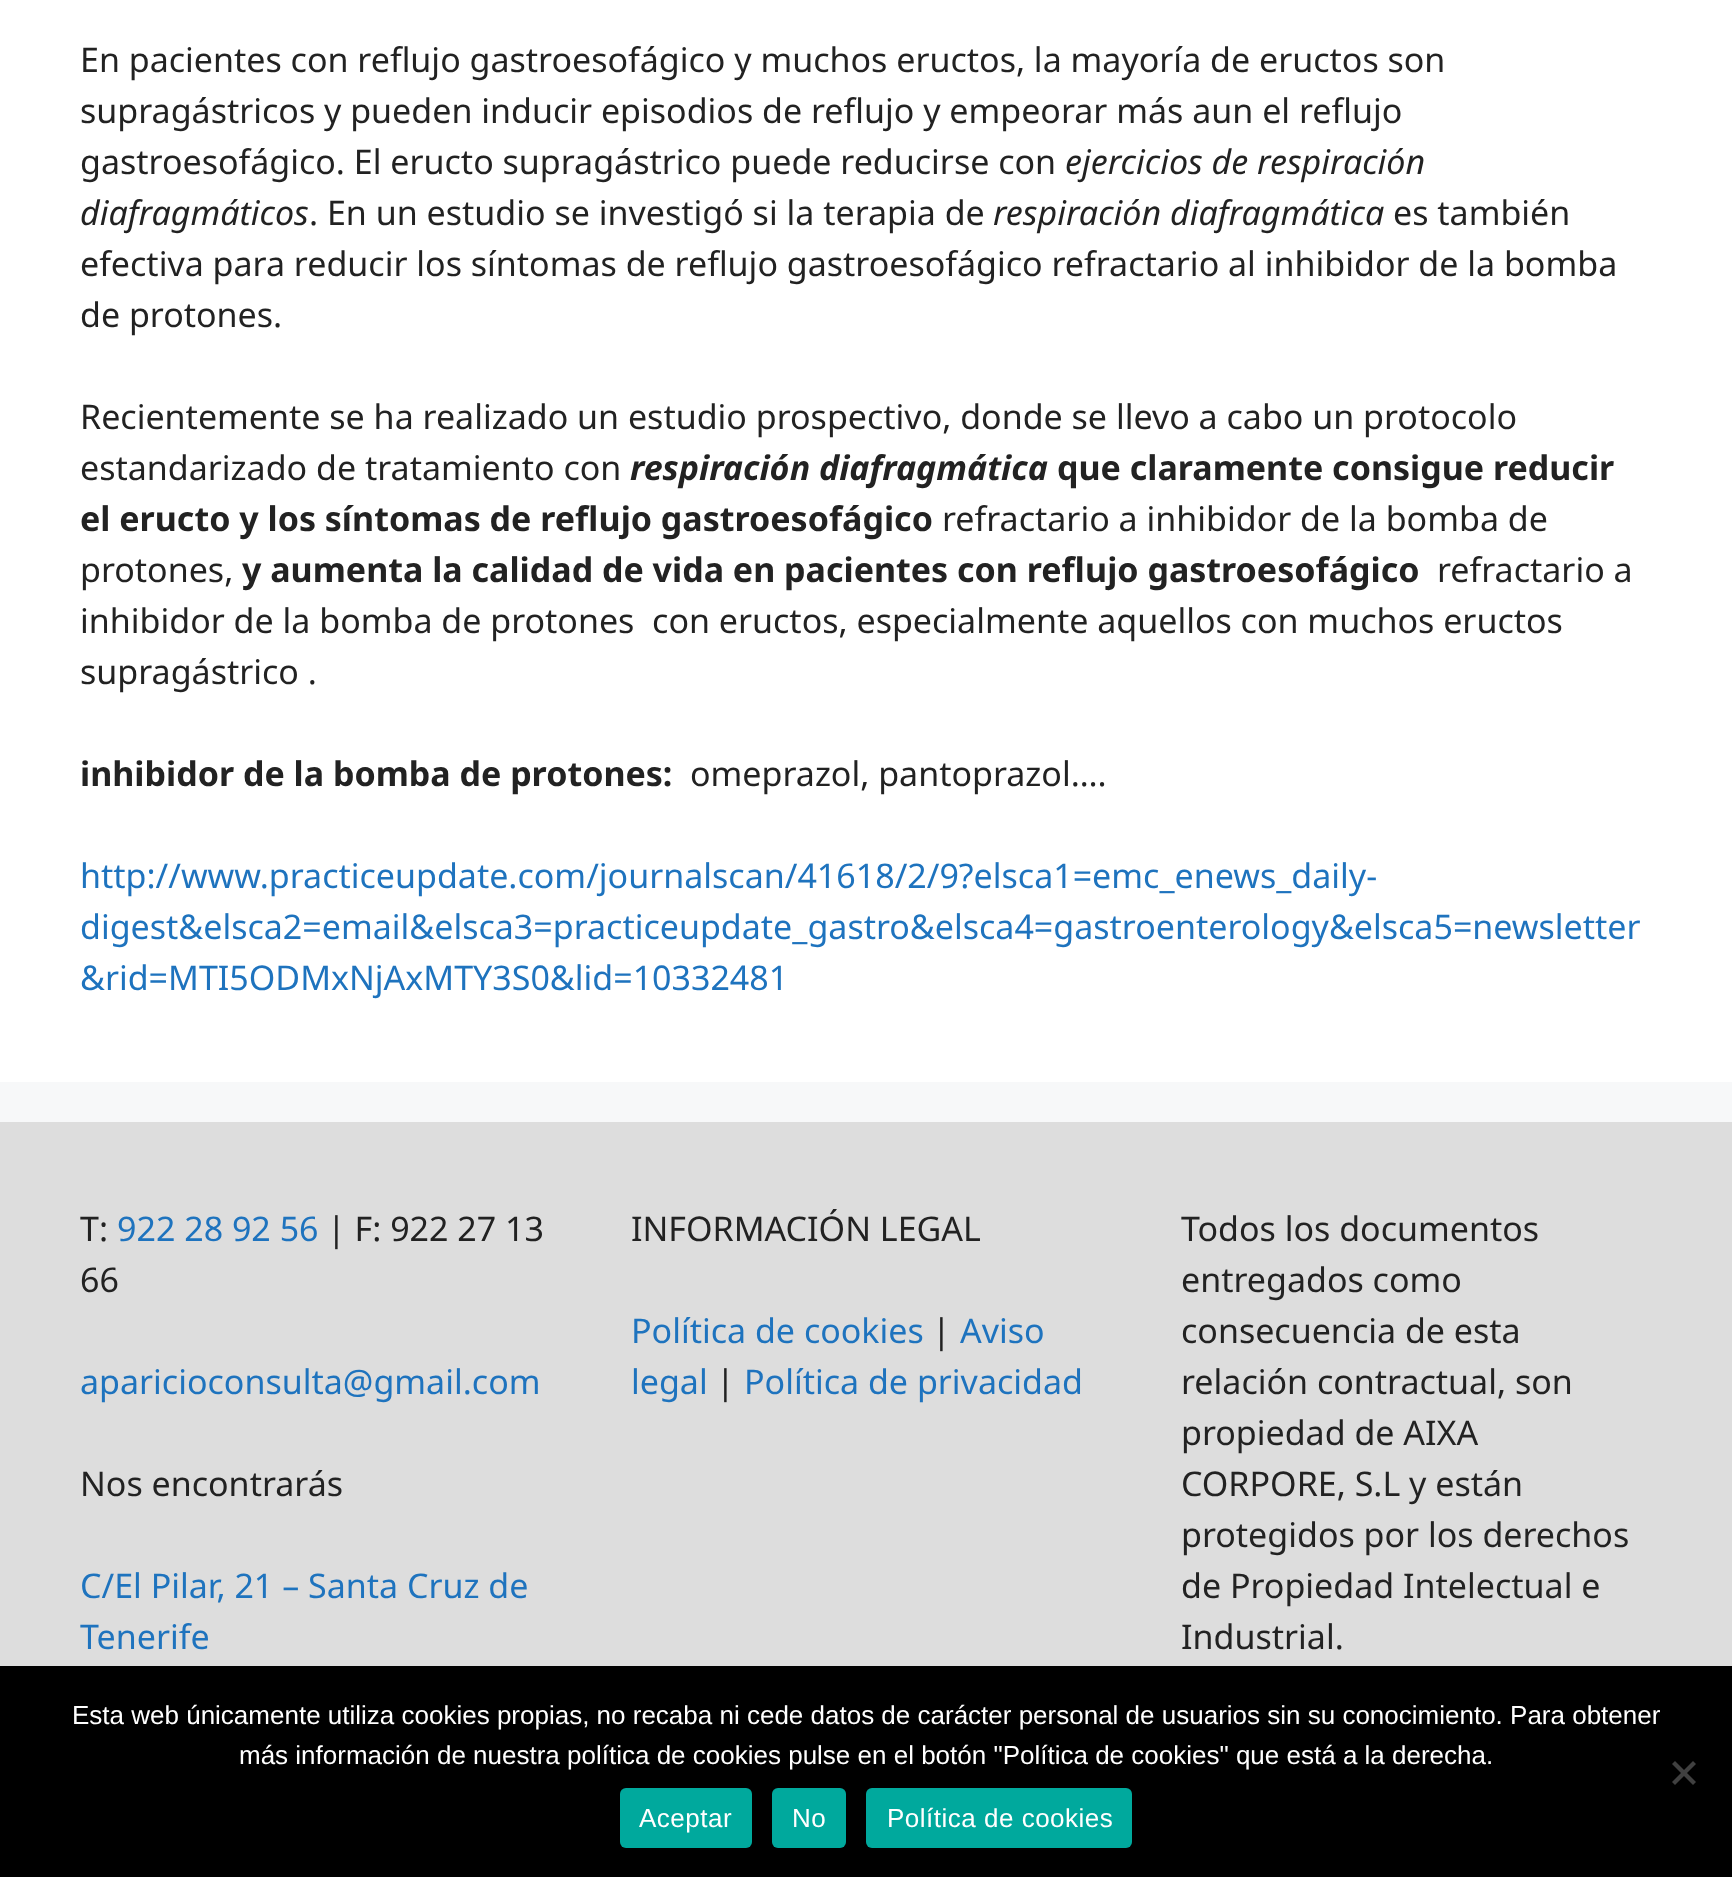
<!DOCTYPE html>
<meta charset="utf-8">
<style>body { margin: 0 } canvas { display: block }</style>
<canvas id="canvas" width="1732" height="1877"></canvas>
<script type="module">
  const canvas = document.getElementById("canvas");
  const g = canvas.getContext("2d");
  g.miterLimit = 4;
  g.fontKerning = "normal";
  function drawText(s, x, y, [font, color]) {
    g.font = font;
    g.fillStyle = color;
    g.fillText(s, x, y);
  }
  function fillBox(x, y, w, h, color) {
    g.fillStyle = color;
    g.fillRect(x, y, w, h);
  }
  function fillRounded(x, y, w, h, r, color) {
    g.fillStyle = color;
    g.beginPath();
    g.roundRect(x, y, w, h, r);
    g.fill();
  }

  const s1 = ["34px Noto Sans", "#222222"];
  const s2 = ["italic 34px Noto Sans", "#222222"];
  const s3 = ["italic bold 34px Noto Sans", "#222222"];
  const s4 = ["bold 34px Noto Sans", "#222222"];
  const s5 = ["34px Noto Sans", "#1E73BE"];
  const s6 = ["26px Liberation Sans", "#FFFFFF"];

  fillBox(0, 0, 1732, 1877, "#F7F8F9");
  fillBox(0, 0, 1732, 1082, "#FFFFFF");
  drawText("En pacientes con reflujo gastroesofágico y muchos eructos, la mayoría de eructos son", 80, 72, s1);
  drawText("supragástricos y pueden inducir episodios de reflujo y empeorar más aun el reflujo", 80, 123, s1);
  drawText("gastroesofágico. El eructo supragástrico puede reducirse con", 80, 174, s1);
  drawText("ejercicios de respiración", 1065, 174, s2);
  drawText("diafragmáticos", 80, 225, s2);
  drawText(". En un estudio se investigó si la terapia de", 309, 225, s1);
  drawText("respiración diafragmática", 993, 225, s2);
  drawText("es también", 1393, 225, s1);
  drawText("efectiva para reducir los síntomas de reflujo gastroesofágico refractario al inhibidor de la bomba", 80, 276, s1);
  drawText("de protones.", 80, 327, s1);
  drawText("Recientemente se ha realizado un estudio prospectivo, donde se llevo a cabo un protocolo", 80, 429, s1);
  drawText("estandarizado de tratamiento con", 80, 480, s1);
  drawText("respiración diafragmática", 630, 480, s3);
  drawText("que claramente consigue reducir", 1057, 480, s4);
  drawText("el eructo y los síntomas de reflujo gastroesofágico", 80, 531, s4);
  drawText("refractario a inhibidor de la bomba de", 942, 531, s1);
  drawText("protones,", 80, 582, s1);
  drawText("y aumenta la calidad de vida en pacientes con reflujo gastroesofágico", 242, 582, s4);
  drawText("refractario a", 1437, 582, s1);
  drawText("inhibidor de la bomba de protones  con eructos, especialmente aquellos con muchos eructos", 80, 633, s1);
  drawText("supragástrico .", 80, 684, s1);
  drawText("inhibidor de la bomba de protones:", 80, 786, s4);
  drawText("omeprazol, pantoprazol….", 690, 786, s1);
  drawText("http://www.practiceupdate.com/journalscan/41618/2/9?elsca1=emc_enews_daily-", 80, 888, s5);
  drawText("digest&elsca2=email&elsca3=practiceupdate_gastro&elsca4=gastroenterology&elsca5=newsletter", 80, 939, s5);
  drawText("&rid=MTI5ODMxNjAxMTY3S0&lid=10332481", 80, 990, s5);
  fillBox(0, 1122, 1732, 544, "#DDDDDD");
  drawText("T:", 80, 1241, s1);
  drawText("922 28 92 56", 117, 1241, s5);
  drawText("| F: 922 27 13", 327, 1241, s1);
  drawText("66", 80, 1292, s1);
  drawText("aparicioconsulta@gmail.com", 80, 1394, s5);
  drawText("Nos encontrarás", 80, 1496, s1);
  drawText("C/El Pilar, 21 – Santa Cruz de", 80, 1598, s5);
  drawText("Tenerife", 80, 1649, s5);
  drawText("INFORMACIÓN LEGAL", 631, 1241, s1);
  drawText("Política de cookies", 631, 1343, s5);
  drawText("|", 932, 1343, s1);
  drawText("Aviso", 960, 1343, s5);
  drawText("legal", 631, 1394, s5);
  drawText("|", 716, 1394, s1);
  drawText("Política de privacidad", 744, 1394, s5);
  drawText("Todos los documentos", 1181, 1241, s1);
  drawText("entregados como", 1181, 1292, s1);
  drawText("consecuencia de esta", 1181, 1343, s1);
  drawText("relación contractual, son", 1181, 1394, s1);
  drawText("propiedad de AIXA", 1181, 1445, s1);
  drawText("CORPORE, S.L y están", 1181, 1496, s1);
  drawText("protegidos por los derechos", 1181, 1547, s1);
  drawText("de Propiedad Intelectual e", 1181, 1598, s1);
  drawText("Industrial.", 1181, 1649, s1);
  fillBox(0, 1666, 1732, 211, "#000000");
  drawText("Esta web únicamente utiliza cookies propias, no recaba ni cede datos de carácter personal de usuarios sin su conocimiento. Para obtener", 72, 1724, s6);
  drawText("más información de nuestra política de cookies pulse en el botón \"Política de cookies\" que está a la derecha.", 239, 1764, s6);
  g.fillStyle = "#404040";
  g.beginPath();
  g.moveTo(1693, 1761);
  g.lineTo(1696, 1764);
  g.lineTo(1675, 1785);
  g.lineTo(1672, 1782);
  g.closePath();
  g.fill();
  g.beginPath();
  g.moveTo(1672, 1764);
  g.lineTo(1675, 1761);
  g.lineTo(1696, 1782);
  g.lineTo(1693, 1785);
  g.closePath();
  g.fill();
  fillRounded(620, 1788, 132, 60, 6, "#00A99D");
  g.letterSpacing = "0.5px";
  drawText("Aceptar", 639, 1827, s6);
  fillRounded(772, 1788, 74, 60, 6, "#00A99D");
  drawText("No", 792, 1827, s6);
  fillRounded(866, 1788, 266, 60, 6, "#00A99D");
  drawText("Política de cookies", 887, 1827, s6);
</script>
